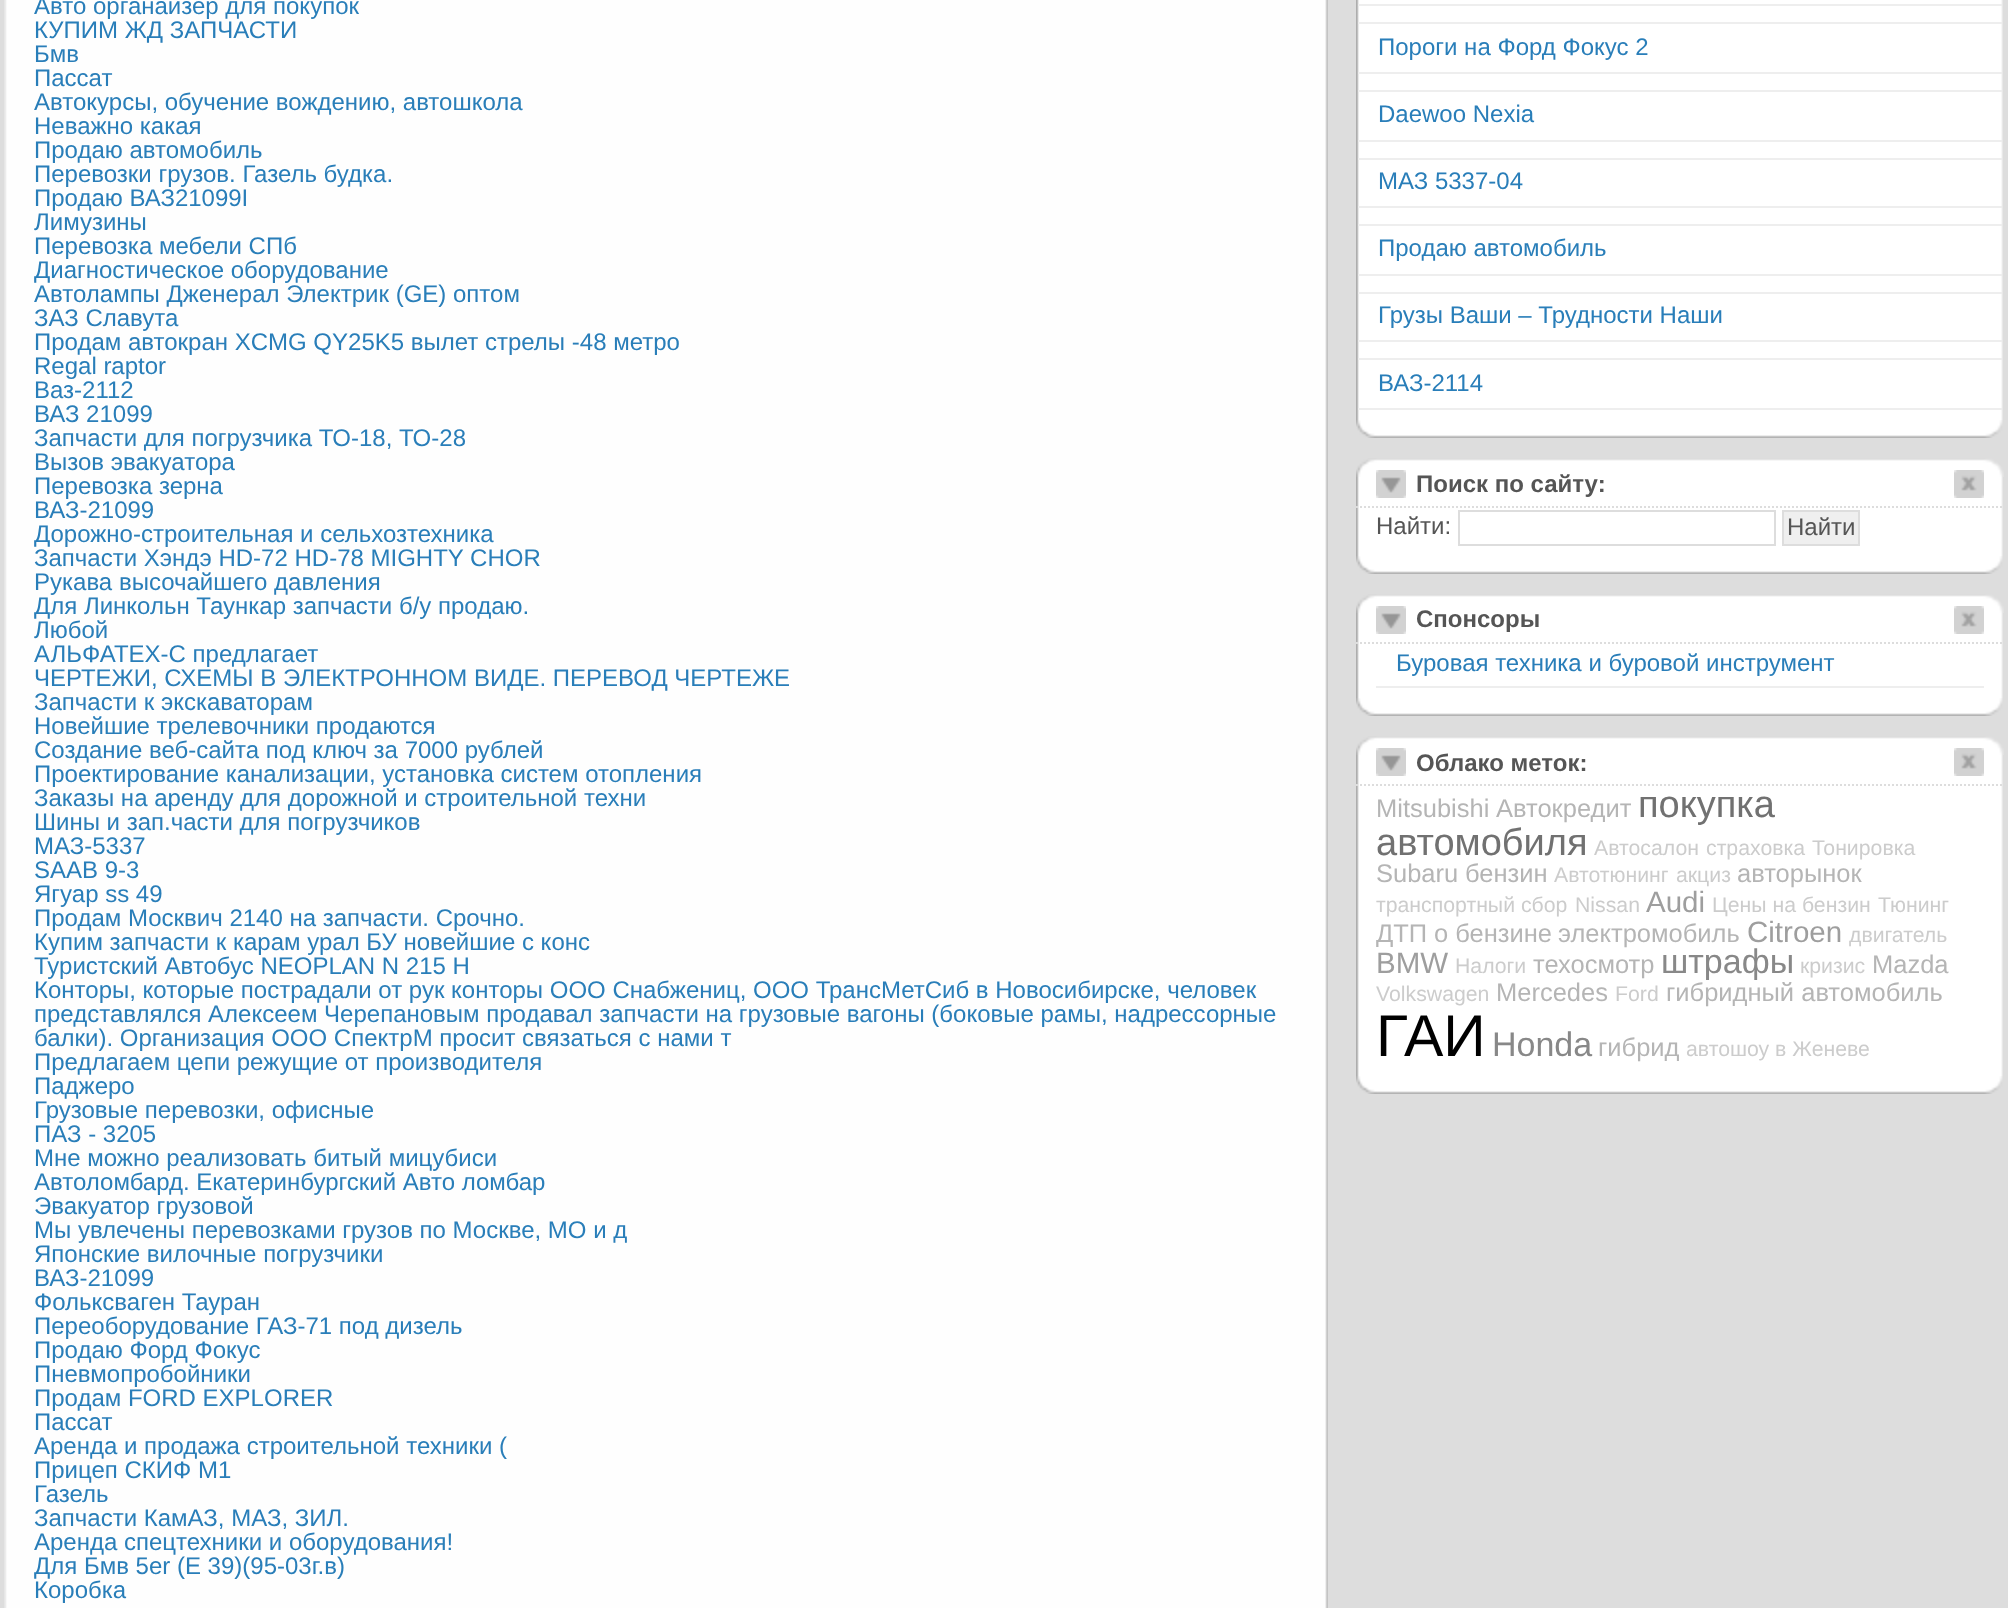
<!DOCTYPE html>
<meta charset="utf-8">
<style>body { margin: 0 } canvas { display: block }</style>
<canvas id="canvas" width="2008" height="1608"></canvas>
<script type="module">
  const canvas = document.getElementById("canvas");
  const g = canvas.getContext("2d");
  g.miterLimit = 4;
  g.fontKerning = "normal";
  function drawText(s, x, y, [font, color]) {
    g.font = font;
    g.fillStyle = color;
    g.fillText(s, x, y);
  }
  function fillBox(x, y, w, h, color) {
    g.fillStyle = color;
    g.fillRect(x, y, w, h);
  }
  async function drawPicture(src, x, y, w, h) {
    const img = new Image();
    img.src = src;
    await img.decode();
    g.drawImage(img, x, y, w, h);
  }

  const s1 = ["24px Liberation Sans", "#297EB9"];
  const s2 = ["bold 24px Liberation Sans", "#555555"];
  const s3 = ["24px Liberation Sans", "#555555"];
  const s4 = ["25.5px Liberation Sans", "#B5B5B5"];
  const s5 = ["38px Liberation Sans", "#717171"];
  const s6 = ["21.25px Liberation Sans", "#CCCCCC"];
  const s7 = ["29.5px Liberation Sans", "#9E9E9E"];
  const s8 = ["34px Liberation Sans", "#888888"];
  const s9 = ["59px Liberation Sans", "#000000"];

  fillBox(0, 0, 2008, 1608, "#DDDDDD");
  await drawPicture("pic1.png", 4, 0, 1324, 1608);
  drawText("Авто органайзер для покупок", 34, 14, s1);
  drawText("КУПИМ ЖД ЗАПЧАСТИ", 34, 38, s1);
  drawText("Бмв", 34, 62, s1);
  drawText("Пассат", 34, 86, s1);
  drawText("Автокурсы, обучение вождению, автошкола", 34, 110, s1);
  drawText("Неважно какая", 34, 134, s1);
  drawText("Продаю автомобиль", 34, 158, s1);
  drawText("Перевозки грузов. Газель будка.", 34, 182, s1);
  drawText("Продаю ВАЗ21099I", 34, 206, s1);
  drawText("Лимузины", 34, 230, s1);
  drawText("Перевозка мебели СПб", 34, 254, s1);
  drawText("Диагностическое оборудование", 34, 278, s1);
  drawText("Автолампы Дженерал Электрик (GE) оптом", 34, 302, s1);
  drawText("ЗАЗ Славута", 34, 326, s1);
  drawText("Продам автокран XCMG QY25K5 вылет стрелы -48 метро", 34, 350, s1);
  drawText("Regal raptor", 34, 374, s1);
  drawText("Ваз-2112", 34, 398, s1);
  drawText("ВАЗ 21099", 34, 422, s1);
  drawText("Запчасти для погрузчика ТО-18, ТО-28", 34, 446, s1);
  drawText("Вызов эвакуатора", 34, 470, s1);
  drawText("Перевозка зерна", 34, 494, s1);
  drawText("ВАЗ-21099", 34, 518, s1);
  drawText("Дорожно-строительная и сельхозтехника", 34, 542, s1);
  drawText("Запчасти Хэндэ HD-72 HD-78 MIGHTY CHOR", 34, 566, s1);
  drawText("Рукава высочайшего давления", 34, 590, s1);
  drawText("Для Линкольн Таункар запчасти б/у продаю.", 34, 614, s1);
  drawText("Любой", 34, 638, s1);
  drawText("АЛЬФАТЕХ-С предлагает", 34, 662, s1);
  drawText("ЧЕРТЕЖИ, СХЕМЫ В ЭЛЕКТРОННОМ ВИДЕ. ПЕРЕВОД ЧЕРТЕЖЕ", 34, 686, s1);
  drawText("Запчасти к экскаваторам", 34, 710, s1);
  drawText("Новейшие трелевочники продаются", 34, 734, s1);
  drawText("Создание веб-сайта под ключ за 7000 рублей", 34, 758, s1);
  drawText("Проектирование канализации, установка систем отопления", 34, 782, s1);
  drawText("Заказы на аренду для дорожной и строительной техни", 34, 806, s1);
  drawText("Шины и зап.части для погрузчиков", 34, 830, s1);
  drawText("МАЗ-5337", 34, 854, s1);
  drawText("SAAB 9-3", 34, 878, s1);
  drawText("Ягуар ss 49", 34, 902, s1);
  drawText("Продам Москвич 2140 на запчасти. Срочно.", 34, 926, s1);
  drawText("Купим запчасти к карам урал БУ новейшие с конс", 34, 950, s1);
  drawText("Туристский Автобус NEOPLAN N 215 H", 34, 974, s1);
  drawText("Конторы, которые пострадали от рук конторы ООО Снабжениц, ООО ТрансМетСиб в Новосибирске, человек", 34, 998, s1);
  drawText("представлялся Алексеем Черепановым продавал запчасти на грузовые вагоны (боковые рамы, надрессорные", 34, 1022, s1);
  drawText("балки). Организация ООО СпектрМ просит связаться с нами т", 34, 1046, s1);
  drawText("Предлагаем цепи режущие от производителя", 34, 1070, s1);
  drawText("Паджеро", 34, 1094, s1);
  drawText("Грузовые перевозки, офисные", 34, 1118, s1);
  drawText("ПАЗ - 3205", 34, 1142, s1);
  drawText("Мне можно реализовать битый мицубиси", 34, 1166, s1);
  drawText("Автоломбард. Екатеринбургский Авто ломбар", 34, 1190, s1);
  drawText("Эвакуатор грузовой", 34, 1214, s1);
  drawText("Мы увлечены перевозками грузов по Москве, МО и д", 34, 1238, s1);
  drawText("Японские вилочные погрузчики", 34, 1262, s1);
  drawText("ВАЗ-21099", 34, 1286, s1);
  drawText("Фольксваген Тауран", 34, 1310, s1);
  drawText("Переоборудование ГАЗ-71 под дизель", 34, 1334, s1);
  drawText("Продаю Форд Фокус", 34, 1358, s1);
  drawText("Пневмопробойники", 34, 1382, s1);
  drawText("Продам FORD EXPLORER", 34, 1406, s1);
  drawText("Пассат", 34, 1430, s1);
  drawText("Аренда и продажа строительной техники (", 34, 1454, s1);
  drawText("Прицеп СКИФ М1", 34, 1478, s1);
  drawText("Газель", 34, 1502, s1);
  drawText("Запчасти КамАЗ, МАЗ, ЗИЛ.", 34, 1526, s1);
  drawText("Аренда спецтехники и оборудования!", 34, 1550, s1);
  drawText("Для Бмв 5er (E 39)(95-03г.в)", 34, 1574, s1);
  drawText("Коробка", 34, 1598, s1);
  await drawPicture("pic2.png", 1356, 0, 647, 420);
  fillBox(1358, 4, 644, 2, "#EEEEEE");
  fillBox(1358, 22, 644, 2, "#EEEEEE");
  fillBox(1358, 72, 644, 2, "#EEEEEE");
  drawText("Пороги на Форд Фокус 2", 1378, 55, s1);
  fillBox(1358, 90, 644, 2, "#EEEEEE");
  fillBox(1358, 140, 644, 2, "#EEEEEE");
  drawText("Daewoo Nexia", 1378, 122, s1);
  fillBox(1358, 158, 644, 2, "#EEEEEE");
  fillBox(1358, 206, 644, 2, "#EEEEEE");
  drawText("МАЗ 5337-04", 1378, 189, s1);
  fillBox(1358, 224, 644, 2, "#EEEEEE");
  fillBox(1358, 274, 644, 2, "#EEEEEE");
  drawText("Продаю автомобиль", 1378, 256, s1);
  fillBox(1358, 292, 644, 2, "#EEEEEE");
  fillBox(1358, 340, 644, 2, "#EEEEEE");
  drawText("Грузы Ваши – Трудности Наши", 1378, 323, s1);
  fillBox(1358, 358, 644, 2, "#EEEEEE");
  fillBox(1358, 408, 644, 2, "#EEEEEE");
  drawText("ВАЗ-2114", 1378, 391, s1);
  await drawPicture("pic3.png", 1356, 420, 647, 18);
  await drawPicture("pic4.png", 1356, 477, 647, 79);
  await drawPicture("pic5.png", 1356, 458, 648, 19);
  g.beginPath();
  g.moveTo(1356, 507);
  g.lineTo(2004, 507);
  g.strokeStyle = "#DDDDDD";
  g.lineWidth = 2;
  g.setLineDash([2, 2]);
  g.stroke();
  await drawPicture("pic6.png", 1376, 470, 30, 28);
  drawText("Поиск по сайту:", 1416, 492, s2);
  await drawPicture("pic7.png", 1954, 470, 30, 28);
  drawText("Найти:", 1376, 534, s3);
  g.setLineDash([]);
  g.strokeRect(1459, 511, 316, 34);
  g.fillStyle = "#EFEFEF";
  g.beginPath();
  g.rect(1783, 511, 76, 34);
  g.fill();
  g.stroke();
  drawText("Найти", 1787, 535, s3);
  await drawPicture("pic3.png", 1356, 556, 647, 18);
  await drawPicture("pic8.png", 1356, 613, 647, 85);
  await drawPicture("pic5.png", 1356, 594, 648, 19);
  g.beginPath();
  g.moveTo(1356, 643);
  g.lineTo(2004, 643);
  g.setLineDash([2, 2]);
  g.stroke();
  await drawPicture("pic6.png", 1376, 606, 30, 28);
  drawText("Спонсоры", 1416, 627, s2);
  await drawPicture("pic7.png", 1954, 606, 30, 28);
  fillBox(1376, 686, 608, 2, "#EEEEEE");
  drawText("Буровая техника и буровой инструмент", 1396, 671, s1);
  await drawPicture("pic3.png", 1356, 698, 647, 18);
  await drawPicture("pic9.png", 1356, 755, 647, 321);
  await drawPicture("pic5.png", 1356, 736, 648, 19);
  g.beginPath();
  g.moveTo(1356, 785);
  g.lineTo(2004, 785);
  g.stroke();
  await drawPicture("pic6.png", 1376, 748, 30, 28);
  drawText("Облако меток:", 1416, 771, s2);
  await drawPicture("pic7.png", 1954, 748, 30, 28);
  drawText("Mitsubishi", 1376, 817, s4);
  drawText("Автокредит", 1496, 817, s4);
  drawText("покупка", 1638, 817, s5);
  drawText("автомобиля", 1376, 855, s5);
  drawText("Автосалон", 1594, 855, s6);
  drawText("страховка", 1706, 855, s6);
  drawText("Тонировка", 1812, 855, s6);
  drawText("Subaru", 1376, 882, s4);
  drawText("бензин", 1465, 882, s4);
  drawText("Автотюнинг", 1554, 882, s6);
  drawText("акциз", 1676, 882, s6);
  drawText("авторынок", 1737, 882, s4);
  drawText("транспортный сбор", 1376, 912, s6);
  drawText("Nissan", 1575, 912, s6);
  drawText("Audi", 1646, 912, s7);
  drawText("Цены на бензин", 1712, 912, s6);
  drawText("Тюнинг", 1878, 912, s6);
  drawText("ДТП", 1376, 942, s4);
  drawText("о бензине", 1434, 942, s4);
  drawText("электромобиль", 1558, 942, s4);
  drawText("Citroen", 1747, 942, s7);
  drawText("двигатель", 1849, 942, s6);
  drawText("BMW", 1376, 973, s7);
  drawText("Налоги", 1455, 973, s6);
  drawText("техосмотр", 1533, 973, s4);
  drawText("штрафы", 1661, 973, s8);
  drawText("кризис", 1800, 973, s6);
  drawText("Mazda", 1872, 973, s4);
  drawText("Volkswagen", 1376, 1001, s6);
  drawText("Mercedes", 1496, 1001, s4);
  drawText("Ford", 1615, 1001, s6);
  drawText("гибридный автомобиль", 1666, 1001, s4);
  drawText("ГАИ", 1376, 1056, s9);
  drawText("Honda", 1492, 1056, s8);
  drawText("гибрид", 1598, 1056, s4);
  drawText("автошоу в Женеве", 1686, 1056, s6);
  await drawPicture("pic3.png", 1356, 1076, 647, 18);
</script>
